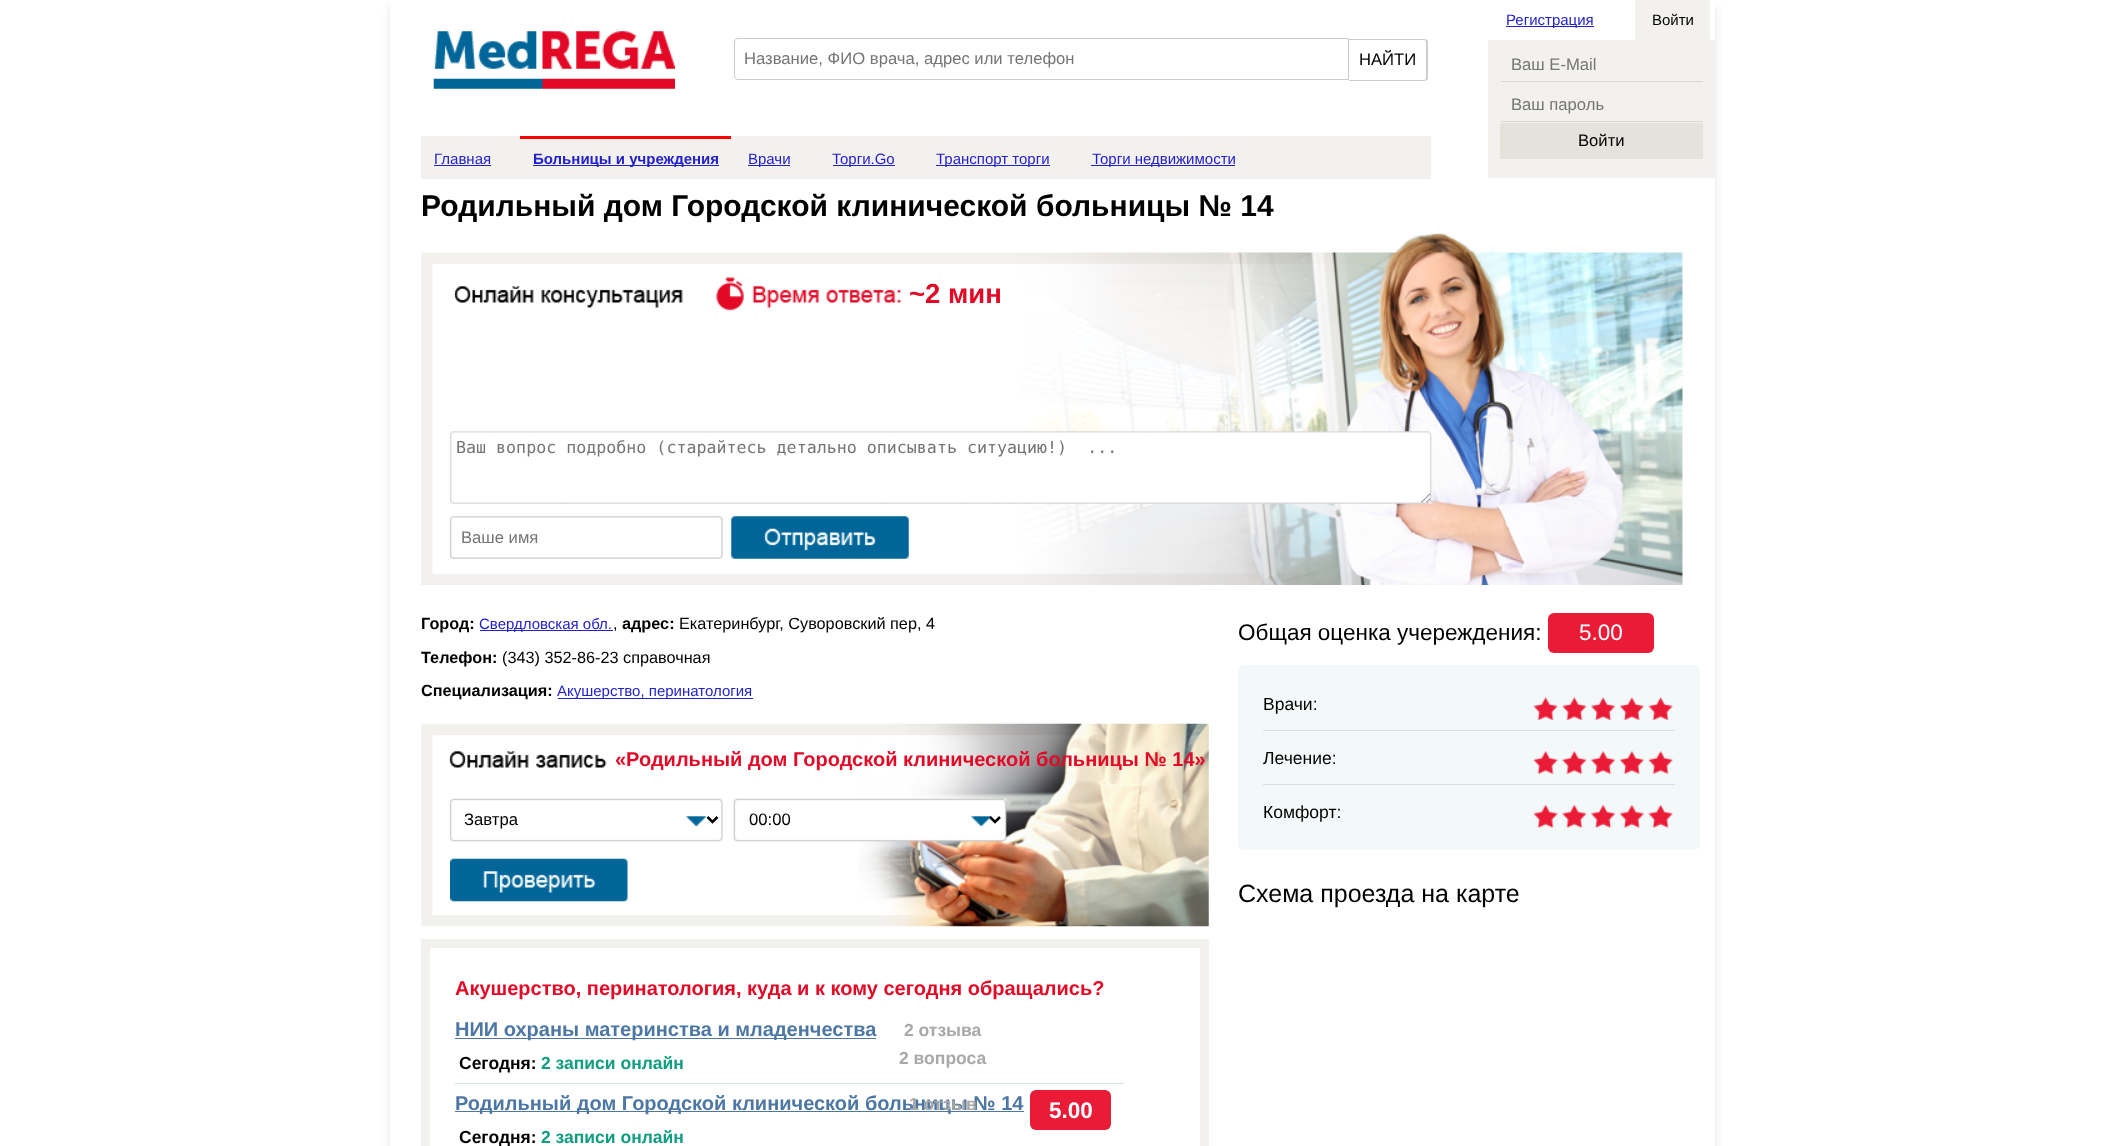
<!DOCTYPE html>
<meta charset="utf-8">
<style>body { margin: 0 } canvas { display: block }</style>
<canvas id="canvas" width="2104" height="1146"></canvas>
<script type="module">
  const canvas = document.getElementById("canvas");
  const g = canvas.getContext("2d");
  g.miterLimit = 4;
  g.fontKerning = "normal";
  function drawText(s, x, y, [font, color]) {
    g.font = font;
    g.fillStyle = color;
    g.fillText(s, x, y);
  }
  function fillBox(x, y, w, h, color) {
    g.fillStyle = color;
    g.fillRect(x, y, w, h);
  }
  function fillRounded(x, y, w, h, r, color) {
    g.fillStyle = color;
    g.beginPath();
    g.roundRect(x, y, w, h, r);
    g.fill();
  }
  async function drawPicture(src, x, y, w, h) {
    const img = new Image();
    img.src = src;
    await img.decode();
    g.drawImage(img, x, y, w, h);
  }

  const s1 = ["16.65px Liberation Sans", "#757575"];
  const s2 = ["16.65px Liberation Sans", "#000000"];
  const s3 = ["15px Liberation Sans", "#2222CC"];
  const s4 = ["15px Liberation Sans", "#000000"];
  const s5 = ["bold 15px Liberation Sans", "#2222CC"];
  const s6 = ["bold 30px Liberation Sans", "#000000"];
  const s7 = ["bold 27.5px Liberation Sans", "#E30926"];
  const s8 = ["16.65px DejaVu Sans Mono", "#757575"];
  const s9 = ["bold 16.25px Liberation Sans", "#000000"];
  const s10 = ["16.25px Liberation Sans", "#000000"];
  const s11 = ["bold 20px Liberation Sans", "#E30926"];
  const s12 = ["bold 20px Liberation Sans", "#4D77A3"];
  const s13 = ["bold 17.5px Liberation Sans", "#A8A8A8"];
  const s14 = ["bold 17.5px Liberation Sans", "#000000"];
  const s15 = ["bold 17.5px Liberation Sans", "#109D80"];
  const s16 = ["bold 22.5px Liberation Sans", "#FFFFFF"];
  const s17 = ["22.5px Liberation Sans", "#000000"];
  const s18 = ["22.5px Liberation Sans", "#FFFFFF"];
  const s19 = ["17.5px Liberation Sans", "#000000"];
  const s20 = ["25px Liberation Sans", "#000000"];

  fillBox(0, 0, 2104, 1146, "#FFFFFF");
  g.save();
  g.beginPath();
  g.moveTo(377, 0);
  g.lineTo(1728, 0);
  g.lineTo(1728, 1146);
  g.lineTo(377, 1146);
  g.closePath();
  g.moveTo(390, 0);
  g.lineTo(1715, 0);
  g.lineTo(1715, 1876);
  g.lineTo(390, 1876);
  g.closePath();
  g.clip("evenodd");
  g.fillStyle = "rgba(0, 0, 0, 0.1)";
  g.filter = "blur(4px)";
  g.beginPath();
  g.rect(390, 6, 1325, 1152);
  g.fill();
  g.filter = "none";
  g.restore();
  await drawPicture("pic1.png", 433, 31, 242, 58);
  g.beginPath();
  g.roundRect(734.5, 38.5, 614, 41, [3.5, 0, 0, 3.5]);
  g.strokeStyle = "#CCCCCC";
  g.stroke();
  drawText("Название, ФИО врача, адрес или телефон", 744, 64, s1);
  g.fillStyle = "#CCCCCC";
  g.beginPath();
  g.moveTo(1349, 39);
  g.lineTo(1424, 39);
  g.bezierCurveTo(1426, 39, 1428, 40, 1428, 42);
  g.lineTo(1428, 78);
  g.bezierCurveTo(1428, 80, 1426, 81, 1424, 81);
  g.lineTo(1349, 81);
  g.closePath();
  g.moveTo(1349, 40);
  g.lineTo(1424, 40);
  g.bezierCurveTo(1425, 40, 1426, 41, 1426, 42);
  g.lineTo(1426, 78);
  g.bezierCurveTo(1426, 79, 1425, 80, 1424, 80);
  g.lineTo(1349, 80);
  g.closePath();
  g.fill("evenodd");
  drawText("НАЙТИ", 1359, 65, s2);
  fillBox(1506, 26, 88, 1, "#2222CC");
  drawText("Регистрация", 1506, 25, s3);
  fillBox(1635, 0, 75, 40, "#F3F1ED");
  drawText("Войти", 1652, 25, s4);
  fillBox(1488, 40, 227, 138, "#F3F1ED");
  fillBox(1500, 81, 203, 1, "#DAD8D5");
  fillBox(1500, 81, 1, 2, "#F3F1ED");
  drawText("Ваш E-Mail", 1511, 70, s1);
  fillBox(1500, 121, 203, 1, "#DAD8D5");
  fillBox(1500, 121, 1, 2, "#F3F1ED");
  drawText("Ваш пароль", 1511, 110, s1);
  fillBox(1500, 123, 203, 36, "#E5E2DC");
  drawText("Войти", 1578, 146, s2);
  fillBox(421, 136, 1010, 43, "#F3F1ED");
  drawText("Главная", 434, 164, s3);
  fillBox(434, 165, 57, 1, "#2222CC");
  fillBox(520, 136, 211, 3, "#FF0000");
  fillBox(533, 165, 186, 1, "#2222CC");
  drawText("Больницы и учреждения", 533, 164, s5);
  fillBox(748, 165, 42, 1, "#2222CC");
  drawText("Врачи", 748, 164, s3);
  fillBox(833, 165, 62, 1, "#2222CC");
  drawText("Торги.Go", 832, 164, s3);
  fillBox(936, 165, 114, 1, "#2222CC");
  drawText("Транспорт торги", 936, 164, s3);
  fillBox(1091, 165, 144, 1, "#2222CC");
  drawText("Торги недвижимости", 1092, 164, s3);
  drawText("Родильный дом Городской клинической больницы № 14", 421, 216, s6);
  await drawPicture("pic2.png", 421, 233, 1262, 352);
  drawText("~2 мин", 909, 303, s7);
  drawText("Ваш вопрос подробно (старайтесь детально описывать ситуацию!)  ...", 456, 453, s8);
  drawText("Ваше имя", 461, 543, s1);
  await drawPicture("pic3.png", 731, 516, 178, 43);
  drawText("Город:", 421, 629, s9);
  fillBox(480, 630, 133, 1, "#2222CC");
  drawText("Свердловская обл.", 479, 629, s3);
  drawText(",", 613, 629, s10);
  drawText("адрес:", 622, 629, s9);
  drawText("Екатеринбург, Суворовский пер, 4", 679, 629, s10);
  drawText("Телефон:", 421, 663, s9);
  drawText("(343) 352-86-23 справочная", 502, 663, s10);
  drawText("Специализация:", 421, 696, s9);
  fillBox(558, 698, 195, 1, "#2222CC");
  drawText("Акушерство, перинатология", 557, 696, s3);
  await drawPicture("pic4.png", 421, 723, 788, 204);
  drawText("«Родильный дом Городской клинической больницы № 14»", 615, 766, s11);
  g.beginPath();
  g.moveTo(707.5, 817);
  g.lineTo(712.5, 822);
  g.lineTo(717.5, 817);
  g.strokeStyle = "#000000";
  g.lineWidth = 2.5;
  g.stroke();
  drawText("Завтра", 464, 825, s2);
  g.beginPath();
  g.moveTo(990, 817);
  g.lineTo(995, 822);
  g.lineTo(1000, 817);
  g.stroke();
  drawText("00:00", 749, 825, s2);
  await drawPicture("pic5.png", 450, 858, 178, 44);
  g.strokeStyle = "#F3F1ED";
  g.lineWidth = 9;
  g.strokeRect(425.5, 943.5, 779, 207);
  drawText("Акушерство, перинатология, куда и к кому сегодня обращались?", 455, 995, s11);
  fillBox(455, 1083, 669, 1, "#D1E1E6");
  fillBox(455, 1038, 421, 1, "#4D77A3");
  drawText("НИИ охраны материнства и младенчества", 455, 1036, s12);
  drawText("2 отзыва", 904, 1036, s13);
  drawText("2 вопроса", 899, 1064, s13);
  drawText("Сегодня:", 459, 1069, s14);
  drawText("2 записи онлайн", 541, 1069, s15);
  fillBox(455, 1111, 569, 1, "#4D77A3");
  drawText("Родильный дом Городской клинической больницы № 14", 455, 1110, s12);
  drawText("1 отзыв", 909, 1110, s13);
  fillRounded(1030, 1090, 81, 40, 6, "#EA1B37");
  drawText("5.00", 1049, 1118, s16);
  drawText("Сегодня:", 459, 1143, s14);
  drawText("2 записи онлайн", 541, 1143, s15);
  drawText("Общая оценка учереждения:", 1238, 640, s17);
  fillRounded(1548, 613, 106, 40, 6, "#EA1B37");
  drawText("5.00", 1579, 640, s18);
  fillRounded(1238, 665, 462, 185, 6, "#F3F8F9");
  fillBox(1263, 730, 412, 1, "#D1E1E6");
  drawText("Врачи:", 1263, 710, s19);
  await drawPicture("pic6.png", 1534, 696, 139, 1);
  await drawPicture("pic7.png", 1533, 696, 140, 25);
  fillBox(1263, 784, 412, 1, "#D1E1E6");
  drawText("Лечение:", 1263, 764, s19);
  await drawPicture("pic8.png", 1533, 750, 140, 24);
  drawText("Комфорт:", 1263, 818, s19);
  await drawPicture("pic9.png", 1534, 803, 139, 1);
  await drawPicture("pic10.png", 1533, 804, 140, 24);
  drawText("Схема проезда на карте", 1238, 902, s20);
</script>
